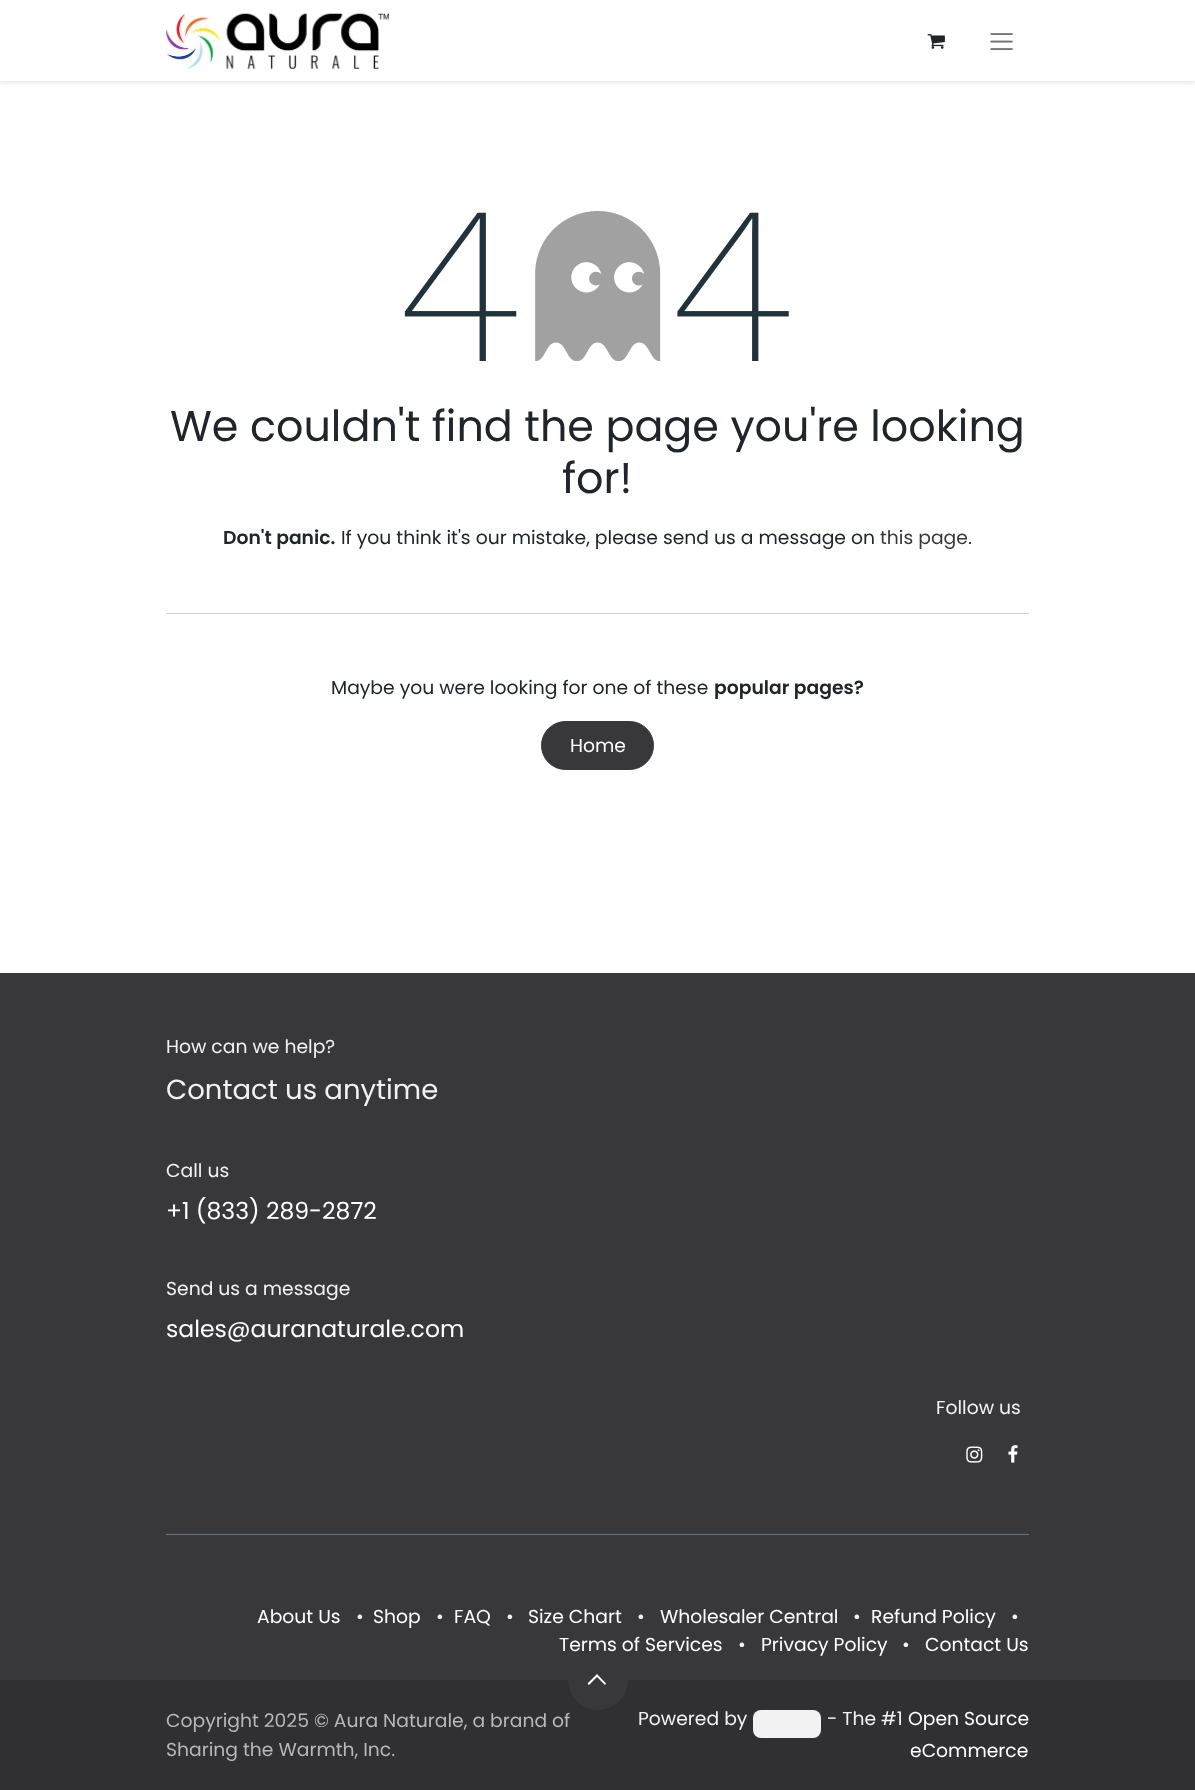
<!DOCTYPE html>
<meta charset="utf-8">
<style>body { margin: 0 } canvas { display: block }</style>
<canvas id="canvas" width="1195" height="1790"></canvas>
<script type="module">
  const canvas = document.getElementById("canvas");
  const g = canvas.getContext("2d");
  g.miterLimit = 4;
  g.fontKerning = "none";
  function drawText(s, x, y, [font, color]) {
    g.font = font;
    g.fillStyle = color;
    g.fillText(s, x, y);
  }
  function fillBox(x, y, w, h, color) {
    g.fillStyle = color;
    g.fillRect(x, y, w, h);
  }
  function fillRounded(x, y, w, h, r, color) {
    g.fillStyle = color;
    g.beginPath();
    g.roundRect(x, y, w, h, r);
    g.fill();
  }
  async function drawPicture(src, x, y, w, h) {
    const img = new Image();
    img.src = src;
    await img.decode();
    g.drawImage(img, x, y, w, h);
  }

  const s1 = ["42.9px Poppins", "#212529"];
  const s2 = ["600 18.75px Poppins", "#212529"];
  const s3 = ["18.75px Poppins", "#212529"];
  const s4 = ["18.75px Poppins", "#38383B"];
  const s5 = ["18.75px Poppins", "#FFFFFF"];
  const s6 = ["18.75px Poppins", "#F2F2F3"];
  const s7 = ["27.5px Poppins", "#F2F2F3"];
  const s8 = ["23.5px Poppins", "#FFFFFF"];
  const s9 = ["18.75px Poppins", "#B8B8B9"];

  fillBox(0, 0, 1195, 1790, "#FFFFFF");
  g.save();
  g.beginPath();
  g.rect(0, 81, 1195, 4);
  g.clip();
  g.fillStyle = "rgba(0, 0, 0, 0.1)";
  g.filter = "blur(2px)";
  g.beginPath();
  g.rect(0, 1, 1195, 82);
  g.fill();
  g.filter = "none";
  g.restore();
  await drawPicture("pic1.png", 166, 13, 223, 56);
  await drawPicture("pic2.png", 927, 34, 18, 15);
  await drawPicture("pic3.png", 990, 33, 23, 17);
  await drawPicture("pic4.png", 404, 211, 385, 150);
  drawText("We couldn't find the page you're looking", 170, 441, s1);
  drawText("for!", 562, 493, s1);
  drawText("Don't panic.", 223, 544, s2);
  drawText("If you think it's our mistake, please send us a message on", 341, 544, s3);
  drawText("this page", 880, 544, s4);
  drawText(".", 968, 544, s3);
  fillBox(166, 613, 863, 1, "#CED4DA");
  drawText("Maybe you were looking for one of these", 331, 694, s3);
  drawText("popular pages?", 714, 694, s2);
  g.fillStyle = "#38383B";
  g.beginPath();
  g.roundRect(541.5, 721.5, 112, 48, 24);
  g.fill();
  g.strokeStyle = "#38383B";
  g.stroke();
  drawText("Home", 570, 752, s5);
  fillBox(0, 973, 1195, 707, "#38383B");
  drawText("How can we help?", 166, 1053, s6);
  drawText("Contact us anytime", 166, 1099, s7);
  drawText("Call us", 166, 1177, s6);
  drawText("+1 (833) 289-2872", 166, 1219, s8);
  drawText("Send us a message", 166, 1295, s6);
  drawText("sales@auranaturale.com", 166, 1337, s8);
  drawText("Follow us", 936, 1414, s6);
  await drawPicture("pic5.png", 966, 1446, 17, 17);
  await drawPicture("pic6.png", 1008, 1445, 10, 18);
  fillBox(166, 1534, 863, 1, "#6C757D");
  drawText("About Us", 257, 1623, s5);
  drawText("•", 356, 1623, s6);
  drawText("Shop", 373, 1623, s5);
  drawText("•", 436, 1623, s6);
  drawText("FAQ", 454, 1623, s5);
  drawText("•", 506, 1623, s6);
  drawText("Size Chart", 528, 1623, s5);
  drawText("•", 637, 1623, s6);
  drawText("Wholesaler Central", 660, 1623, s5);
  drawText("•", 853, 1623, s6);
  drawText("Refund Policy", 871, 1623, s5);
  drawText("•", 1011, 1623, s6);
  drawText("Terms of Services", 559, 1651, s5);
  drawText("•", 738, 1651, s6);
  drawText("Privacy Policy", 761, 1651, s5);
  drawText("•", 902, 1651, s6);
  drawText("Contact Us", 925, 1651, s5);
  fillBox(0, 1680, 1195, 110, "#303032");
  g.fillStyle = "#38383B";
  g.beginPath();
  g.arc(598, 1680, 30, 0, Math.PI * 2);
  g.fill();
  g.fillStyle = "#FFFFFF";
  g.beginPath();
  g.moveTo(597, 1674);
  g.lineTo(606, 1683.5);
  g.lineTo(605, 1685);
  g.lineTo(597, 1677);
  g.lineTo(589, 1685);
  g.lineTo(587.5, 1683.5);
  g.closePath();
  g.fill();
  drawText("Copyright 2025 © Aura Naturale, a brand of", 166, 1727, s9);
  drawText("Sharing the Warmth, Inc.", 166, 1756, s9);
  drawText("Powered by", 638, 1725, s6);
  fillRounded(753, 1710, 68, 28, 8, "#F2F2F3");
  drawText("- The #1", 827, 1725, s6);
  drawText("Open Source", 908, 1725, s5);
  drawText("eCommerce", 910, 1757, s5);
</script>
